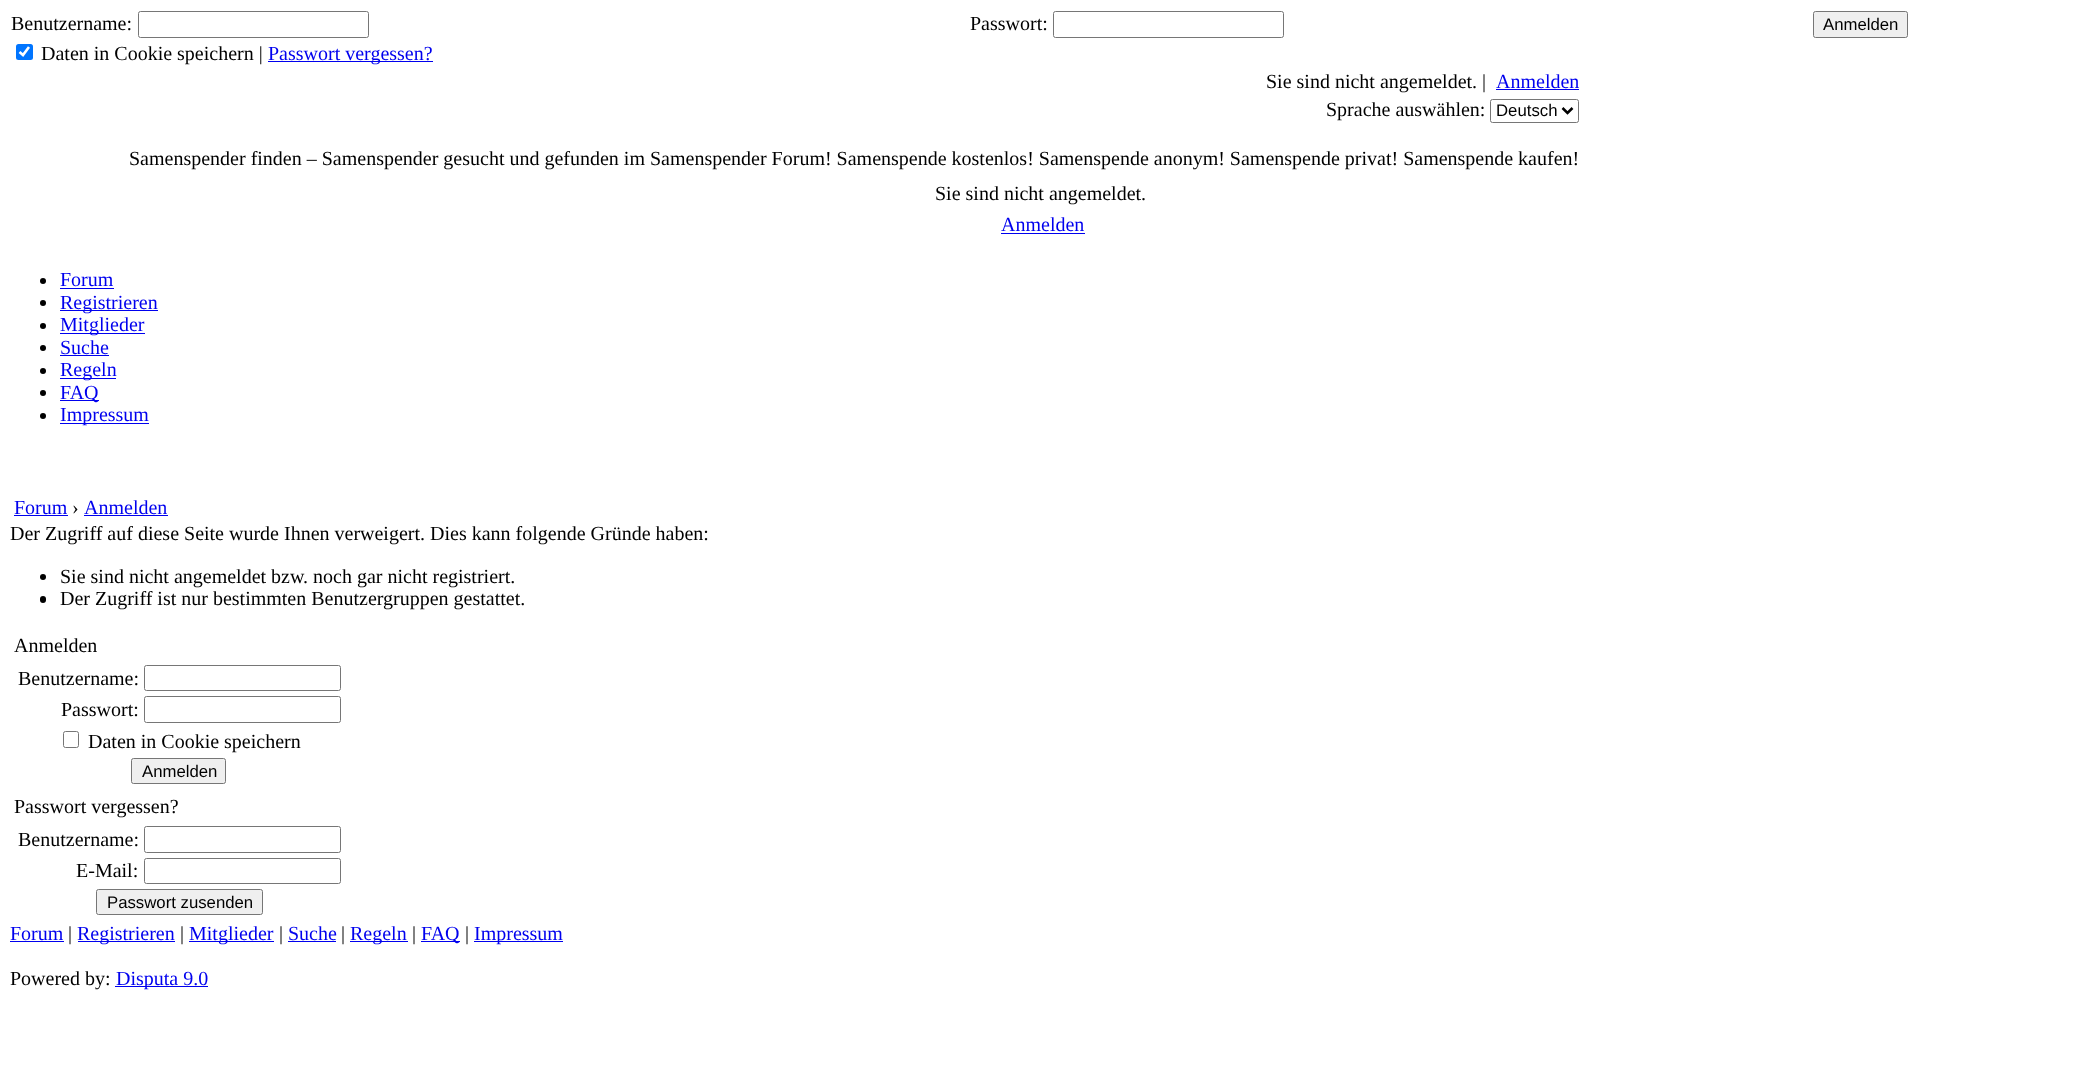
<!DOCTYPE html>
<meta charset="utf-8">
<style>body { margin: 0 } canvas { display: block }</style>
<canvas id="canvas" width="2081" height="1092"></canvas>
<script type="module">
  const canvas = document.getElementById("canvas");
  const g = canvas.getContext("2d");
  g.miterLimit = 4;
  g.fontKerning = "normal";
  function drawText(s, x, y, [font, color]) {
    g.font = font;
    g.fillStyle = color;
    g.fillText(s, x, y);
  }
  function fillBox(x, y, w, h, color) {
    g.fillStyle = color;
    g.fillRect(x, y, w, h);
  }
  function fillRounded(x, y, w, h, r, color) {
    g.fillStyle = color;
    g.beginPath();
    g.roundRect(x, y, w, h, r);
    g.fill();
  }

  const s1 = ["20px Liberation Serif", "#000000"];
  const s2 = ["16.75px Liberation Sans", "#000000"];
  const s3 = ["20px Liberation Serif", "#0000EE"];

  fillBox(0, 0, 2081, 1092, "#FFFFFF");
  drawText("Benutzername:", 11, 30, s1);
  g.beginPath();
  g.roundRect(138.5, 11.5, 230, 26, 2);
  g.strokeStyle = "#767676";
  g.stroke();
  drawText("Passwort:", 970, 30, s1);
  g.beginPath();
  g.roundRect(1053.5, 11.5, 230, 26, 2);
  g.stroke();
  g.fillStyle = "#EFEFEF";
  g.beginPath();
  g.roundRect(1813.5, 11.5, 94, 26, 2);
  g.fill();
  g.stroke();
  drawText("Anmelden", 1823, 30, s2);
  fillRounded(16, 44, 17, 16, 2.5, "#0075FF");
  g.beginPath();
  g.moveTo(19.5, 52);
  g.lineTo(23, 55);
  g.lineTo(29, 47);
  g.strokeStyle = "#FFFFFF";
  g.lineWidth = 2.6;
  g.stroke();
  drawText("Daten in Cookie speichern |", 41, 60, s1);
  fillBox(268, 61, 165, 1, "#0000EE");
  drawText("Passwort vergessen?", 268, 60, s3);
  drawText("Sie sind nicht angemeldet. |", 1266, 88, s1);
  drawText("Anmelden", 1496, 88, s3);
  fillBox(1496, 89, 83, 1, "#0000EE");
  drawText("Sprache auswählen:", 1326, 116, s1);
  g.beginPath();
  g.roundRect(1490.5, 99.5, 88, 23, 2);
  g.strokeStyle = "#767676";
  g.lineWidth = 1;
  g.stroke();
  g.beginPath();
  g.moveTo(1562.5, 108);
  g.lineTo(1567.5, 113);
  g.lineTo(1572.5, 108);
  g.strokeStyle = "#000000";
  g.lineWidth = 2.5;
  g.stroke();
  drawText("Deutsch", 1496, 116, s2);
  drawText("Samenspender finden – Samenspender gesucht und gefunden im Samenspender Forum! Samenspende kostenlos! Samenspende anonym! Samenspende privat! Samenspende kaufen!", 129, 165, s1);
  drawText("Sie sind nicht angemeldet.", 935, 200, s1);
  drawText("Anmelden", 1001, 231, s3);
  fillBox(1001, 233, 84, 1, "#0000EE");
  g.fillStyle = "#000000";
  g.beginPath();
  g.arc(43, 281, 3, 0, Math.PI * 2);
  g.fill();
  drawText("Forum", 60, 286, s3);
  fillBox(60, 288, 54, 1, "#0000EE");
  g.fillStyle = "#000000";
  g.beginPath();
  g.arc(43, 303, 3, 0, Math.PI * 2);
  g.fill();
  fillBox(60, 310, 98, 1, "#0000EE");
  drawText("Registrieren", 60, 309, s3);
  g.fillStyle = "#000000";
  g.beginPath();
  g.arc(43, 326, 3, 0, Math.PI * 2);
  g.fill();
  fillBox(60, 333, 85, 1, "#0000EE");
  drawText("Mitglieder", 60, 331, s3);
  g.fillStyle = "#000000";
  g.beginPath();
  g.arc(43, 348, 3, 0, Math.PI * 2);
  g.fill();
  drawText("Suche", 60, 354, s3);
  fillBox(60, 355, 49, 1, "#0000EE");
  g.fillStyle = "#000000";
  g.beginPath();
  g.arc(43, 371, 3, 0, Math.PI * 2);
  g.fill();
  fillBox(60, 378, 56, 1, "#0000EE");
  drawText("Regeln", 60, 376, s3);
  g.fillStyle = "#000000";
  g.beginPath();
  g.arc(43, 393, 3, 0, Math.PI * 2);
  g.fill();
  fillBox(60, 400, 39, 1, "#0000EE");
  drawText("FAQ", 60, 399, s3);
  g.fillStyle = "#000000";
  g.beginPath();
  g.arc(43, 416, 3, 0, Math.PI * 2);
  g.fill();
  fillBox(60, 423, 89, 1, "#0000EE");
  drawText("Impressum", 60, 421, s3);
  drawText("Forum", 14, 514, s3);
  fillBox(14, 515, 54, 1, "#0000EE");
  drawText("›", 72, 514, s1);
  drawText("Anmelden", 84, 514, s3);
  fillBox(84, 515, 84, 1, "#0000EE");
  drawText("Der Zugriff auf diese Seite wurde Ihnen verweigert. Dies kann folgende Gründe haben:", 10, 540, s1);
  g.beginPath();
  g.arc(43, 577, 3, 0, Math.PI * 2);
  g.fill();
  drawText("Sie sind nicht angemeldet bzw. noch gar nicht registriert.", 60, 583, s1);
  fillRounded(40, 596, 6, 7, 3, "#000000");
  drawText("Der Zugriff ist nur bestimmten Benutzergruppen gestattet.", 60, 605, s1);
  drawText("Anmelden", 14, 652, s1);
  drawText("Benutzername:", 18, 685, s1);
  g.beginPath();
  g.roundRect(144.5, 665.5, 196, 25, 2);
  g.strokeStyle = "#767676";
  g.lineWidth = 1;
  g.stroke();
  drawText("Passwort:", 61, 716, s1);
  g.beginPath();
  g.roundRect(144.5, 696.5, 196, 26, 2);
  g.stroke();
  g.beginPath();
  g.roundRect(63.5, 731.5, 15, 16, 2);
  g.stroke();
  drawText("Daten in Cookie speichern", 88, 748, s1);
  g.fillStyle = "#EFEFEF";
  g.beginPath();
  g.roundRect(131.5, 758.5, 94, 25, 2);
  g.fill();
  g.stroke();
  drawText("Anmelden", 142, 777, s2);
  drawText("Passwort vergessen?", 14, 813, s1);
  drawText("Benutzername:", 18, 846, s1);
  g.beginPath();
  g.roundRect(144.5, 826.5, 196, 26, 2);
  g.stroke();
  drawText("E-Mail:", 76, 877, s1);
  g.beginPath();
  g.roundRect(144.5, 858.5, 196, 25, 2);
  g.stroke();
  g.fillStyle = "#EFEFEF";
  g.beginPath();
  g.roundRect(96.5, 889.5, 166, 25, 2);
  g.fill();
  g.stroke();
  drawText("Passwort zusenden", 107, 908, s2);
  drawText("Forum", 10, 940, s3);
  fillBox(10, 941, 54, 1, "#0000EE");
  drawText("|", 68, 940, s1);
  fillBox(78, 941, 97, 1, "#0000EE");
  drawText("Registrieren", 77, 940, s3);
  drawText("|", 180, 940, s1);
  fillBox(189, 941, 85, 1, "#0000EE");
  drawText("Mitglieder", 189, 940, s3);
  drawText("|", 279, 940, s1);
  drawText("Suche", 288, 940, s3);
  fillBox(288, 941, 48, 1, "#0000EE");
  drawText("|", 341, 940, s1);
  fillBox(350, 941, 58, 1, "#0000EE");
  drawText("Regeln", 350, 940, s3);
  drawText("|", 412, 940, s1);
  fillBox(421, 941, 39, 1, "#0000EE");
  drawText("FAQ", 421, 940, s3);
  drawText("|", 465, 940, s1);
  fillBox(474, 941, 89, 1, "#0000EE");
  drawText("Impressum", 474, 940, s3);
  drawText("Powered by:", 10, 985, s1);
  fillBox(115, 986, 93, 1, "#0000EE");
  drawText("Disputa 9.0", 116, 985, s3);
</script>
